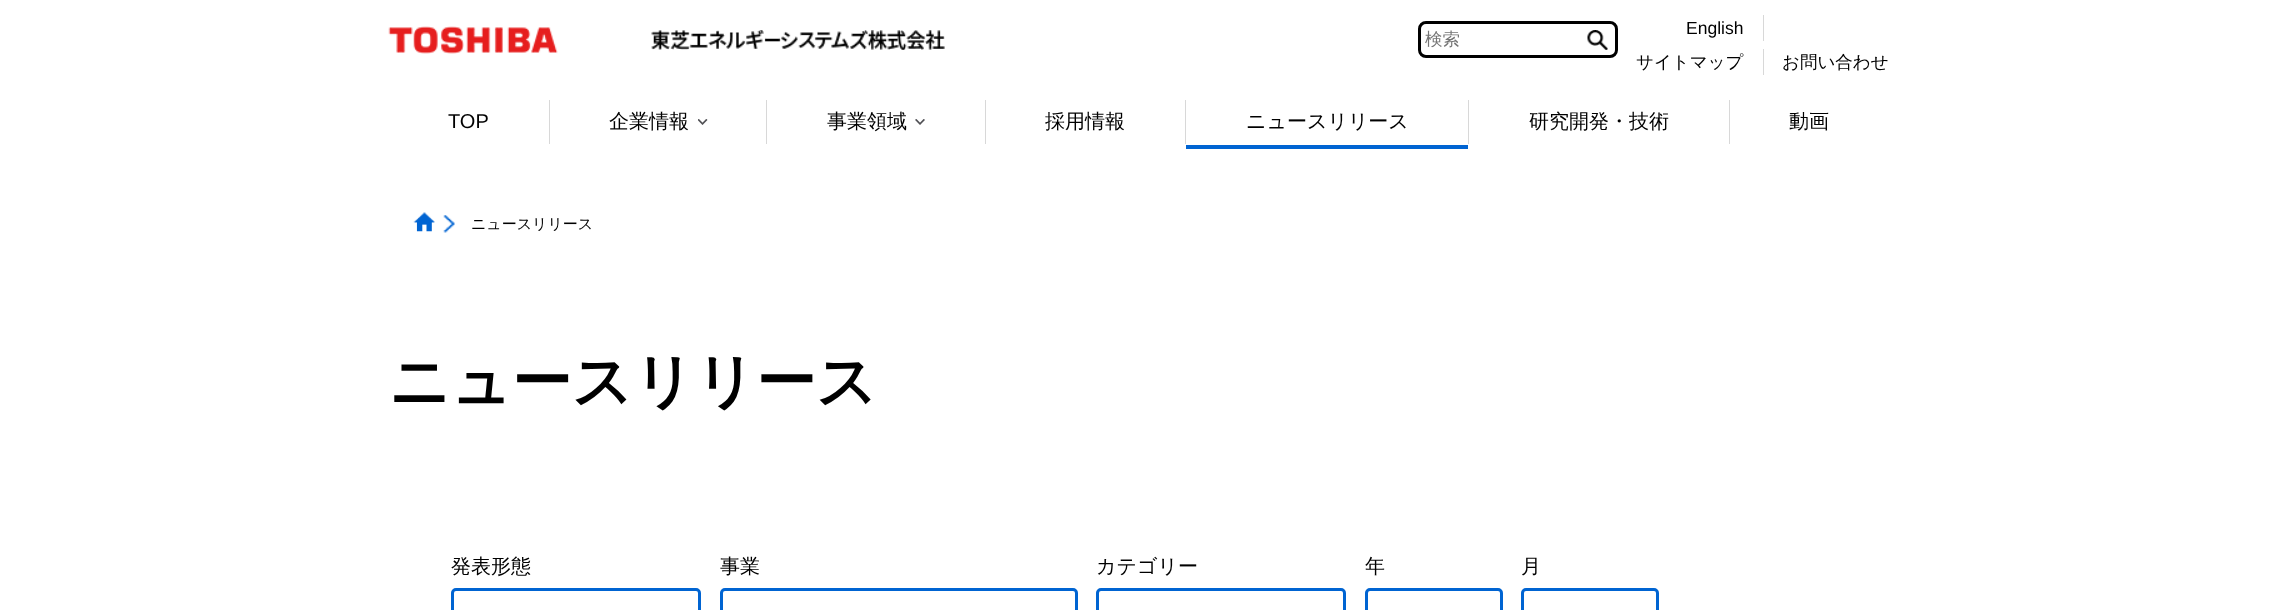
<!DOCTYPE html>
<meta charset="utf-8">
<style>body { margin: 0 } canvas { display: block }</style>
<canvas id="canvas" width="2277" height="610"></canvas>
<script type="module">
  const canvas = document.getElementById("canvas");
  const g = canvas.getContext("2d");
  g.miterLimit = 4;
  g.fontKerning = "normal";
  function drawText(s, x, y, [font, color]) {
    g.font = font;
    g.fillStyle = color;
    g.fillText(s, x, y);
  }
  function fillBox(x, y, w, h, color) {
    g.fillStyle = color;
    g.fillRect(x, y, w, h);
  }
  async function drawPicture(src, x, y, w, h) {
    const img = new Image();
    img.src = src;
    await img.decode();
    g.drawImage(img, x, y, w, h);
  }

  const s1 = ["500 17.5px WenQuanYi Zen Hei", "#757575"];
  const s2 = ["17.5px Liberation Sans", "#000000"];
  const s3 = ["500 17.5px WenQuanYi Zen Hei", "#000000"];
  const s4 = ["20px Liberation Sans", "#000000"];
  const s5 = ["500 20px WenQuanYi Zen Hei", "#000000"];
  const s6 = ["500 15px WenQuanYi Zen Hei", "#000000"];
  const s7 = ["bold 60px WenQuanYi Zen Hei", "#000000"];

  fillBox(0, 0, 2277, 610, "#FFFFFF");
  await drawPicture("pic1.png", 388, 26, 170, 28);
  await drawPicture("pic2.png", 651, 30, 294, 20);
  g.beginPath();
  g.roundRect(1419.5, 22.5, 197, 34, 6.5);
  g.strokeStyle = "#000000";
  g.lineWidth = 3;
  g.stroke();
  drawText("検索", 1425, 45, s1);
  await drawPicture("pic3.png", 1587, 30, 21, 20);
  drawText("English", 1686, 34, s2);
  drawText("サイトマップ", 1636, 68, s3);
  fillBox(1763, 15, 1, 26, "#D8D8D8");
  fillBox(1763, 49, 1, 26, "#D8D8D8");
  drawText("お問い合わせ", 1782, 68, s3);
  drawText("TOP", 448, 128, s4);
  fillBox(549, 100, 1, 44, "#D8D8D8");
  drawText("企業情報", 609, 128, s5);
  await drawPicture("pic4.png", 698, 119, 10, 6);
  fillBox(766, 100, 1, 44, "#D8D8D8");
  drawText("事業領域", 827, 128, s5);
  await drawPicture("pic5.png", 915, 119, 10, 6);
  fillBox(985, 100, 1, 44, "#D8D8D8");
  drawText("採用情報", 1045, 128, s5);
  fillBox(1185, 100, 1, 44, "#D8D8D8");
  drawText("ニュースリリース", 1246, 128, s5);
  fillBox(1186, 145, 282, 4, "#0064D2");
  fillBox(1468, 100, 1, 44, "#D8D8D8");
  drawText("研究開発・技術", 1529, 128, s5);
  fillBox(1729, 100, 1, 44, "#D8D8D8");
  drawText("動画", 1789, 128, s5);
  await drawPicture("pic6.png", 413, 212, 22, 20);
  await drawPicture("pic7.png", 443, 215, 12, 18);
  drawText("ニュースリリース", 471, 229, s6);
  drawText("ニュースリリース", 389, 402, s7);
  drawText("発表形態", 451, 573, s5);
  g.beginPath();
  g.roundRect(452.5, 589.5, 247, 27, 3.5);
  g.strokeStyle = "#0064D2";
  g.stroke();
  drawText("事業", 720, 573, s5);
  g.beginPath();
  g.roundRect(721.5, 589.5, 355, 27, 3.5);
  g.stroke();
  drawText("カテゴリー", 1096, 573, s5);
  g.beginPath();
  g.roundRect(1097.5, 589.5, 247, 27, 3.5);
  g.stroke();
  drawText("年", 1365, 573, s5);
  g.beginPath();
  g.roundRect(1366.5, 589.5, 135, 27, 3.5);
  g.stroke();
  drawText("月", 1521, 573, s5);
  g.beginPath();
  g.roundRect(1522.5, 589.5, 135, 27, 3.5);
  g.stroke();
</script>
